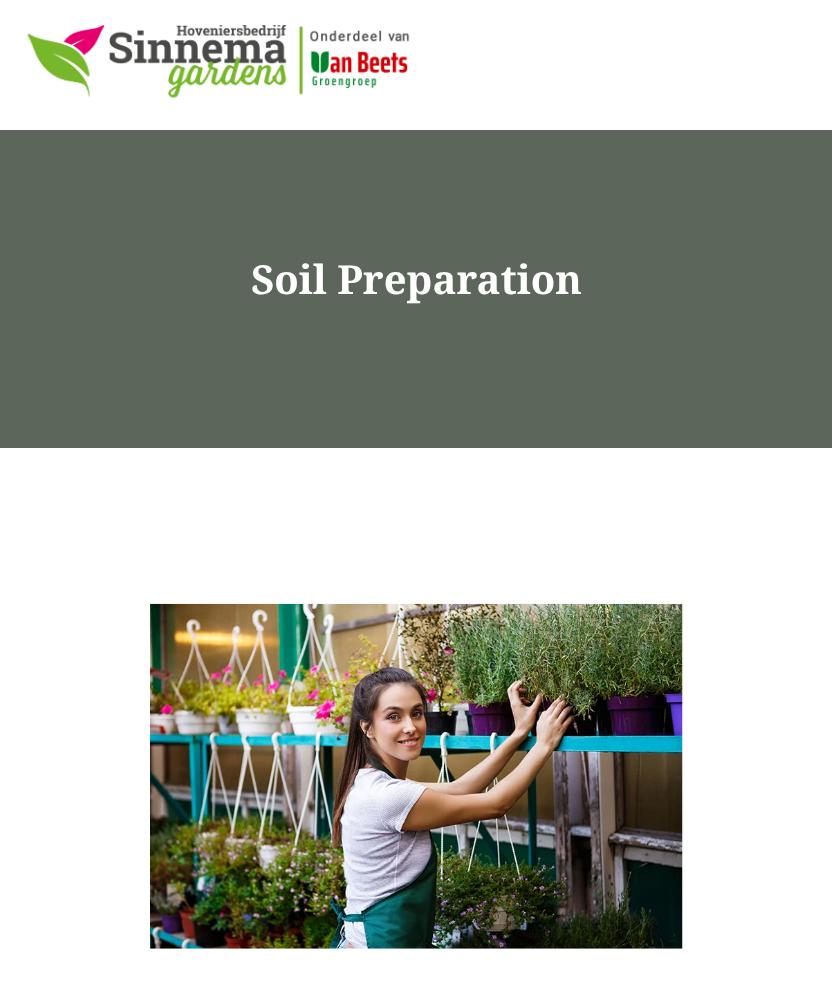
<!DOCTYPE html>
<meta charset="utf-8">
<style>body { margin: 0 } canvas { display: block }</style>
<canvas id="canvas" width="832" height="1007"></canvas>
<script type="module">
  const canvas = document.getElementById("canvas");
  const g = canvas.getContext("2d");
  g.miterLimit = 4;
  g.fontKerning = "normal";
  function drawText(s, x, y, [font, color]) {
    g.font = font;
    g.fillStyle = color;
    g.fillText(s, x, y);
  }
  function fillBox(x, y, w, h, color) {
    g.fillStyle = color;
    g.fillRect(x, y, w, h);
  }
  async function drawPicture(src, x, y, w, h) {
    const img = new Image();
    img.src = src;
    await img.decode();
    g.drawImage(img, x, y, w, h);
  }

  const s1 = ["bold 40px Noto Serif", "#FFFFFF"];

  fillBox(0, 0, 832, 1007, "#FFFFFF");
  await drawPicture("pic1.png", 27, 25, 383, 73);
  fillBox(0, 130, 832, 318, "#5D665A");
  drawText("Soil Preparation", 251, 294, s1);
  await drawPicture("pic2.png", 150, 603, 533, 346);
</script>
